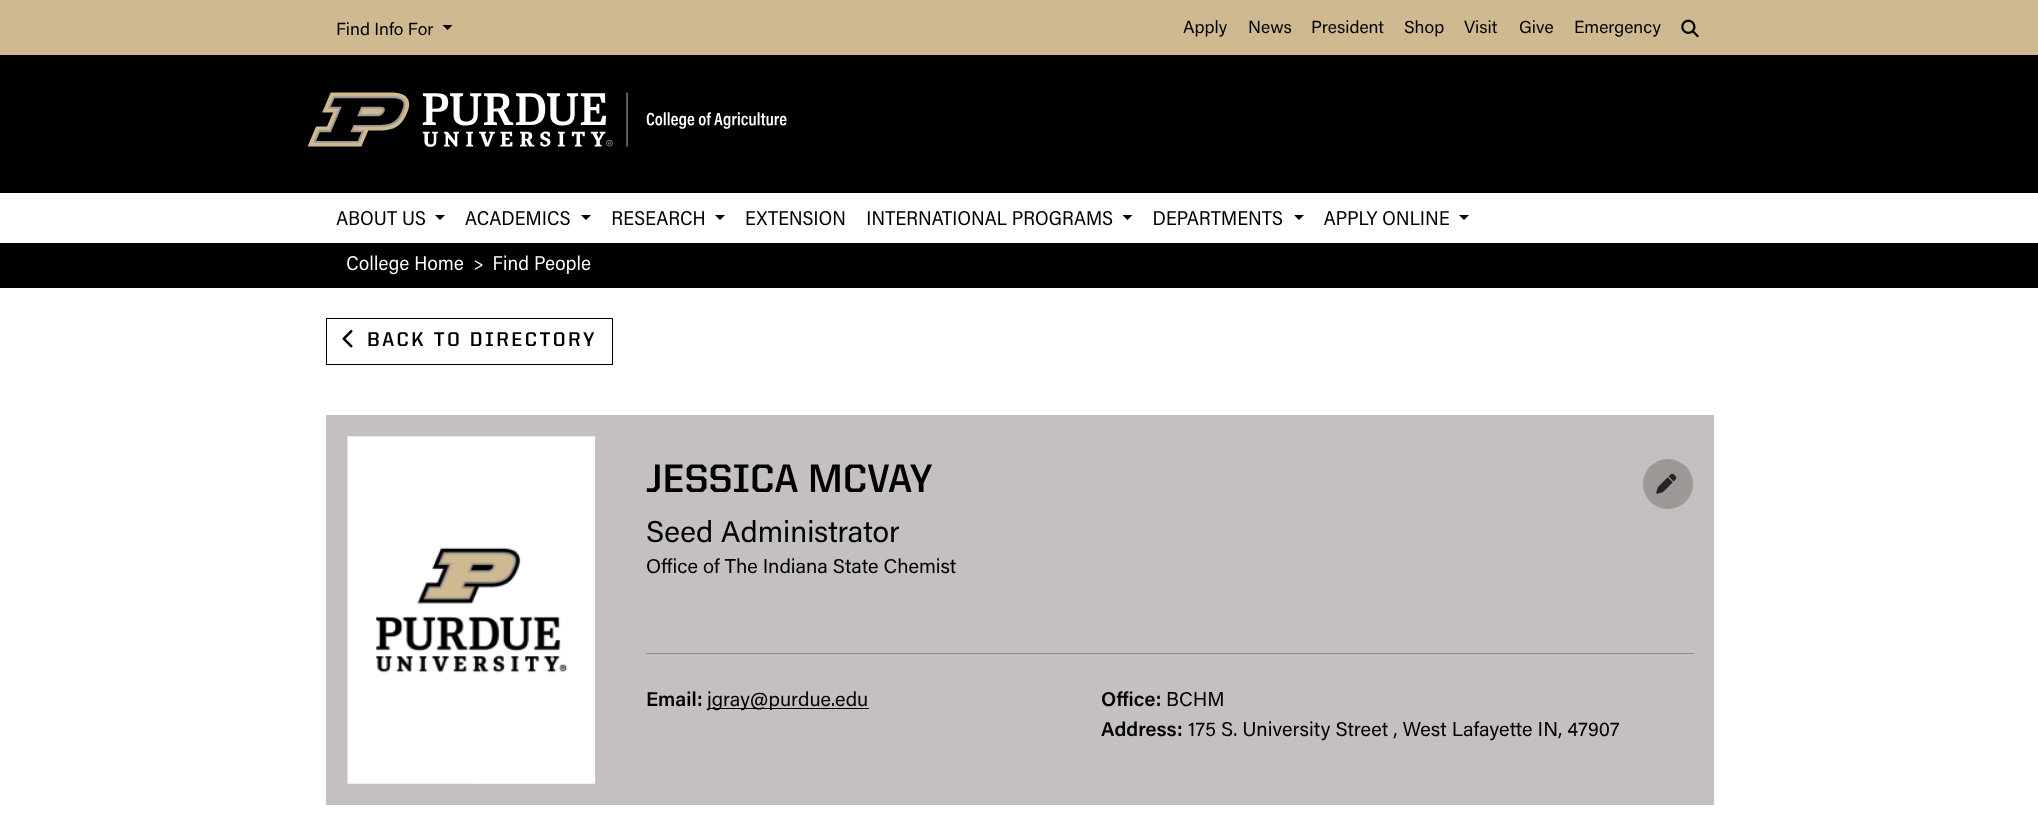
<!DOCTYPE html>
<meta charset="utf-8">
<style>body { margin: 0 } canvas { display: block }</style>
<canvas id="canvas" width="2038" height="829"></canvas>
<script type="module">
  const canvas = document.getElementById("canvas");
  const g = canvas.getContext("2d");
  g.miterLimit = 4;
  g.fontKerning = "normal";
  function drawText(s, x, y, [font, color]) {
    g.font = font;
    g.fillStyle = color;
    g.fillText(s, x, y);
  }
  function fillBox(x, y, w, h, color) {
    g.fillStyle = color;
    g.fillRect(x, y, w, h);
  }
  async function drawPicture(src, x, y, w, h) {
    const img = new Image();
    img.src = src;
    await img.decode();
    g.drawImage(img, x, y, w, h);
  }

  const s1 = ["17.5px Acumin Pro", "#000000"];
  const s2 = ["bold 20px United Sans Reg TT", "#000000"];
  const s3 = ["bold 40px United Sans Reg TT", "#000000"];
  const s4 = ["30px Acumin Pro", "#000000"];
  const s5 = ["20px Acumin Pro", "#000000"];
  const s6 = ["600 20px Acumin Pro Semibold", "#000000"];

  fillBox(0, 0, 2038, 829, "#FFFFFF");
  fillBox(0, 0, 2038, 55, "#CFB991");
  drawText("Find Info For", 336, 35, s1);
  g.beginPath();
  g.moveTo(442.5, 25);
  g.lineTo(452.5, 25);
  g.lineTo(447.5, 30);
  g.closePath();
  g.fill();
  drawText("Apply", 1183, 33, s1);
  drawText("News", 1248, 33, s1);
  drawText("President", 1311, 33, s1);
  drawText("Shop", 1404, 33, s1);
  drawText("Visit", 1464, 33, s1);
  drawText("Give", 1519, 33, s1);
  drawText("Emergency", 1574, 33, s1);
  await drawPicture("pic1.png", 1681, 19, 18, 19);
  fillBox(0, 55, 2038, 138, "#000000");
  await drawPicture("pic2.png", 308, 92, 479, 55);
  await drawPicture("pic3.png", 336, 211, 89, 15);
  g.beginPath();
  g.moveTo(435, 215);
  g.lineTo(445, 215);
  g.lineTo(440, 220);
  g.closePath();
  g.fill();
  await drawPicture("pic4.png", 465, 211, 105, 15);
  g.beginPath();
  g.moveTo(581, 215);
  g.lineTo(591, 215);
  g.lineTo(586, 220);
  g.closePath();
  g.fill();
  await drawPicture("pic5.png", 612, 211, 92, 15);
  g.beginPath();
  g.moveTo(715, 215);
  g.lineTo(725, 215);
  g.lineTo(720, 220);
  g.closePath();
  g.fill();
  await drawPicture("pic6.png", 746, 211, 99, 15);
  await drawPicture("pic7.png", 867, 211, 246, 15);
  g.beginPath();
  g.moveTo(1122.5, 215);
  g.lineTo(1132.5, 215);
  g.lineTo(1127.5, 220);
  g.closePath();
  g.fill();
  await drawPicture("pic8.png", 1154, 211, 129, 15);
  g.beginPath();
  g.moveTo(1294, 215);
  g.lineTo(1304, 215);
  g.lineTo(1299, 220);
  g.closePath();
  g.fill();
  await drawPicture("pic9.png", 1324, 211, 125, 15);
  g.beginPath();
  g.moveTo(1459, 215);
  g.lineTo(1469, 215);
  g.lineTo(1464, 220);
  g.closePath();
  g.fill();
  fillBox(0, 243, 2038, 45, "#000000");
  await drawPicture("pic10.png", 347, 255, 117, 20);
  await drawPicture("pic11.png", 474, 260, 9, 10);
  await drawPicture("pic12.png", 494, 255, 97, 19);
  g.strokeStyle = "#000000";
  g.strokeRect(326.5, 318.5, 286, 46);
  await drawPicture("pic13.png", 342, 330, 11, 18);
  g.letterSpacing = "2.5px";
  drawText("BACK TO DIRECTORY", 367, 346, s2);
  fillBox(326, 415, 1388, 390, "#C4BFC0");
  await drawPicture("pic14.png", 347, 436, 249, 348);
  g.letterSpacing = "0px";
  drawText("JESSICA MCVAY", 646, 492, s3);
  g.fillStyle = "#9D9795";
  g.beginPath();
  g.arc(1668, 484, 25, 0, Math.PI * 2);
  g.fill();
  await drawPicture("pic15.png", 1656, 473, 21, 21);
  drawText("Seed Administrator", 646, 542, s4);
  drawText("Office of The Indiana State Chemist", 646, 573, s5);
  fillBox(646, 653, 1048, 1, "#8D8886");
  drawText("Email:", 646, 706, s6);
  fillBox(708, 708, 161, 1, "#000000");
  drawText("jgray@purdue.edu", 707, 706, s5);
  drawText("Office:", 1101, 706, s6);
  drawText("BCHM", 1166, 706, s5);
  drawText("Address:", 1101, 736, s6);
  drawText("175 S. University Street , West Lafayette IN, 47907", 1188, 736, s5);
</script>
